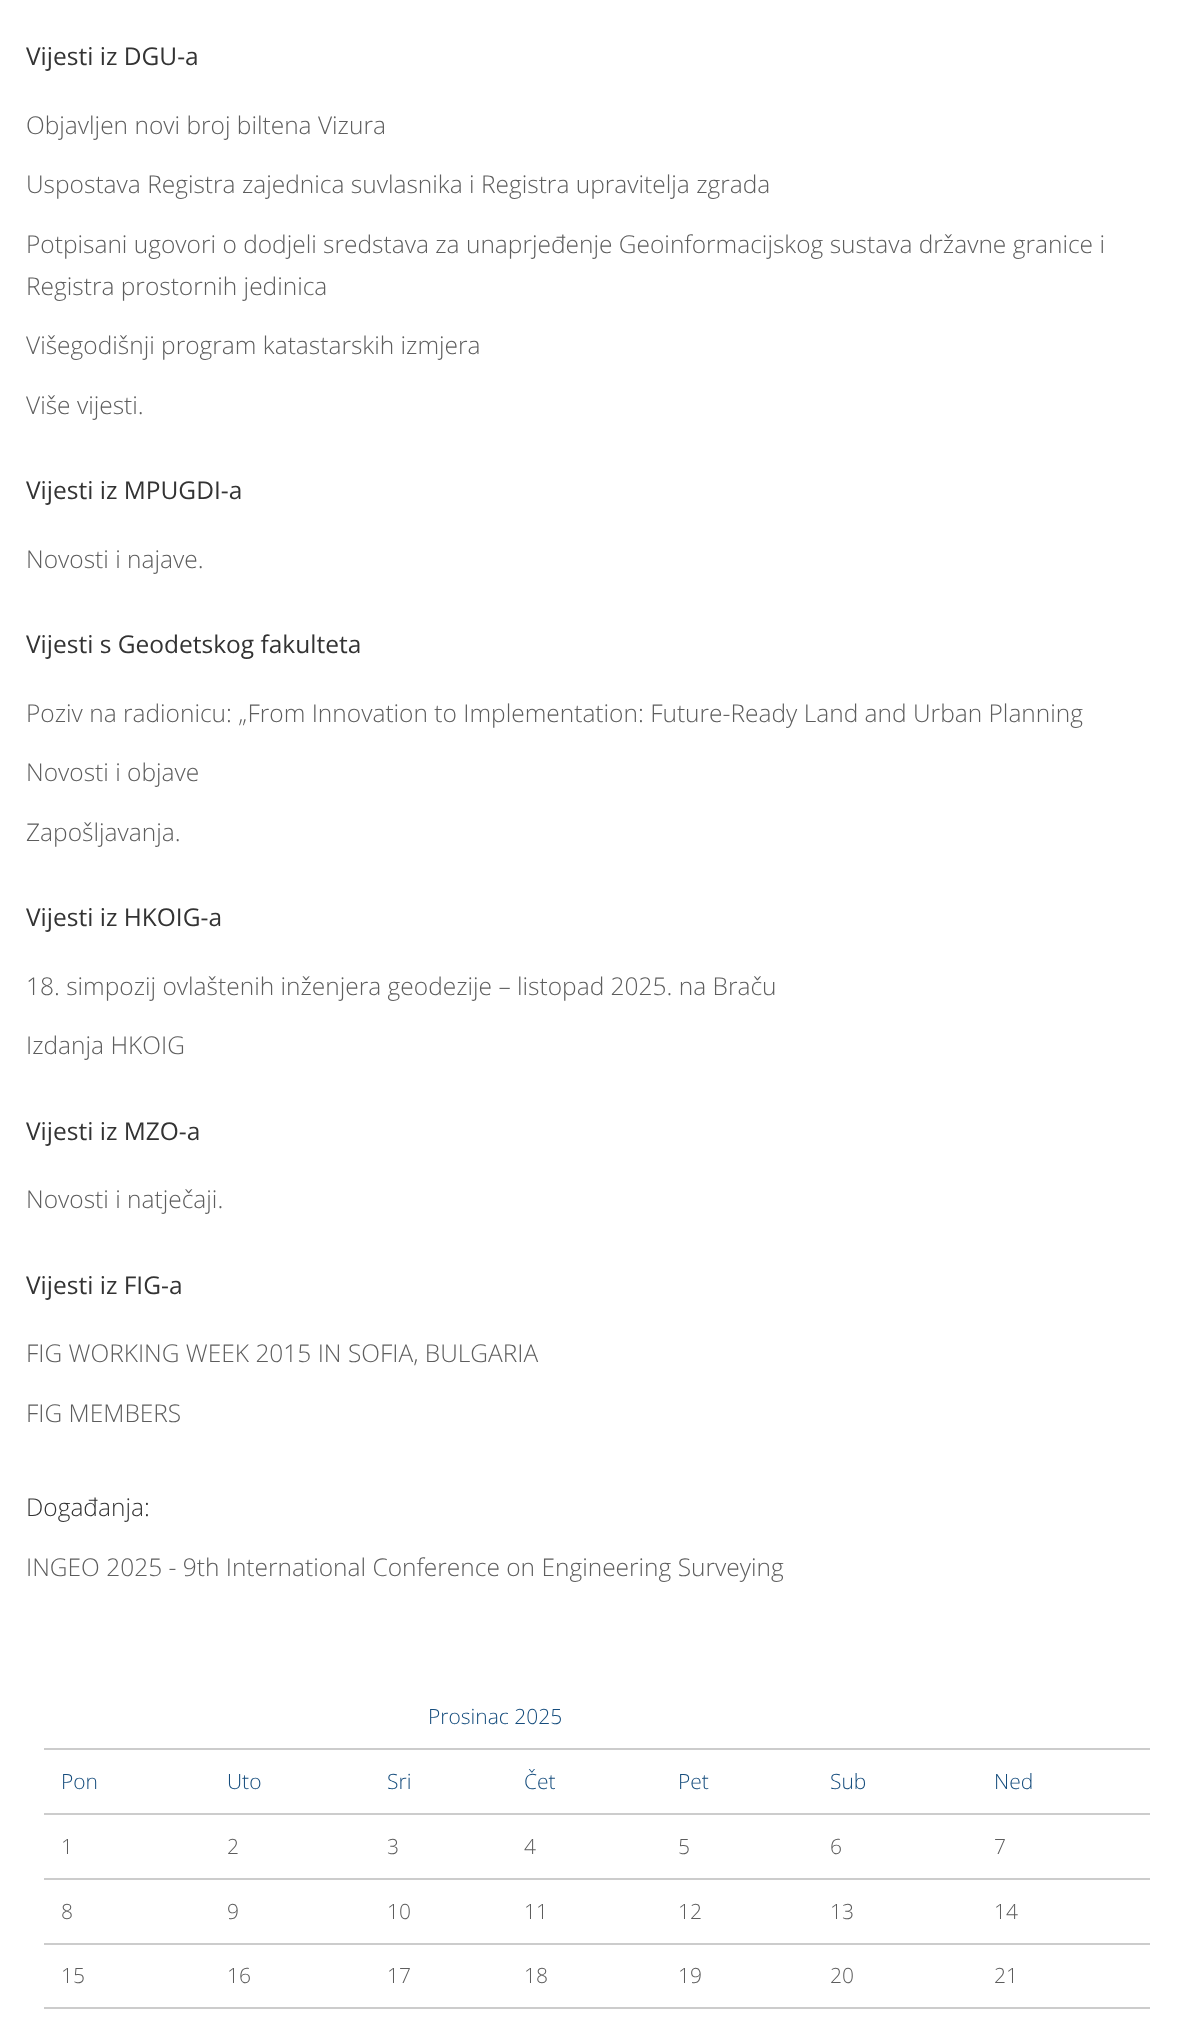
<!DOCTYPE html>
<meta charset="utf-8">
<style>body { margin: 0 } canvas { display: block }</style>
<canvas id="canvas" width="1191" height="2026"></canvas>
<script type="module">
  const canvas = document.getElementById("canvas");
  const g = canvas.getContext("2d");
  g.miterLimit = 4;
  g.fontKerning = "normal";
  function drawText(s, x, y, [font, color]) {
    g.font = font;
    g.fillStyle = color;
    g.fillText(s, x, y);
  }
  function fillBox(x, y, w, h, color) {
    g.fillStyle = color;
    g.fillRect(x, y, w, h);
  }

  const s1 = ["24.5px Open Sans", "#333333"];
  const s2 = ["300 24.5px Open Sans", "#5D5D5D"];
  const s3 = ["300 24.5px Open Sans", "#333333"];
  const s4 = ["300 21px Open Sans", "#164D7D"];
  const s5 = ["300 21px Open Sans", "#5D5D5D"];

  fillBox(0, 0, 1191, 2026, "#FFFFFF");
  drawText("Vijesti iz DGU-a", 26, 65, s1);
  drawText("Objavljen novi broj biltena Vizura", 26, 134, s2);
  drawText("Uspostava Registra zajednica suvlasnika i Registra upravitelja zgrada", 26, 193, s2);
  drawText("Potpisani ugovori o dodjeli sredstava za unaprjeđenje Geoinformacijskog sustava državne granice i", 26, 253, s2);
  drawText("Registra prostornih jedinica", 26, 295, s2);
  drawText("Višegodišnji program katastarskih izmjera", 26, 354, s2);
  drawText("Više vijesti.", 26, 414, s2);
  drawText("Vijesti iz MPUGDI-a", 26, 499, s1);
  drawText("Novosti i najave.", 26, 568, s2);
  drawText("Vijesti s Geodetskog fakulteta", 26, 653, s1);
  drawText("Poziv na radionicu: „From Innovation to Implementation: Future-Ready Land and Urban Planning", 26, 722, s2);
  drawText("Novosti i objave", 26, 781, s2);
  drawText("Zapošljavanja.", 26, 841, s2);
  drawText("Vijesti iz HKOIG-a", 26, 926, s1);
  drawText("18. simpozij ovlaštenih inženjera geodezije – listopad 2025. na Braču", 26, 995, s2);
  drawText("Izdanja HKOIG", 26, 1054, s2);
  drawText("Vijesti iz MZO-a", 26, 1140, s1);
  drawText("Novosti i natječaji.", 26, 1208, s2);
  drawText("Vijesti iz FIG-a", 26, 1294, s1);
  drawText("FIG WORKING WEEK 2015 IN SOFIA, BULGARIA", 26, 1362, s2);
  drawText("FIG MEMBERS", 26, 1422, s2);
  drawText("Događanja:", 26, 1516, s3);
  drawText("INGEO 2025 - 9th International Conference on Engineering Surveying", 26, 1576, s2);
  drawText("Prosinac 2025", 428, 1724, s4);
  fillBox(44, 1748, 1106, 2, "#CCCCCC");
  drawText("Pon", 61, 1789, s4);
  drawText("Uto", 227, 1789, s4);
  drawText("Sri", 387, 1789, s4);
  drawText("Čet", 524, 1789, s4);
  drawText("Pet", 678, 1789, s4);
  drawText("Sub", 830, 1789, s4);
  fillBox(44, 1813, 1106, 2, "#CCCCCC");
  drawText("Ned", 994, 1789, s4);
  drawText("1", 61, 1854, s5);
  drawText("2", 227, 1854, s5);
  drawText("3", 387, 1854, s5);
  drawText("4", 524, 1854, s5);
  drawText("5", 678, 1854, s5);
  drawText("6", 830, 1854, s5);
  fillBox(44, 1878, 1106, 2, "#CCCCCC");
  drawText("7", 994, 1854, s5);
  drawText("8", 61, 1919, s5);
  drawText("9", 227, 1919, s5);
  drawText("10", 387, 1919, s5);
  drawText("11", 524, 1919, s5);
  drawText("12", 678, 1919, s5);
  drawText("13", 830, 1919, s5);
  fillBox(44, 1943, 1106, 2, "#CCCCCC");
  drawText("14", 994, 1919, s5);
  drawText("15", 61, 1983, s5);
  drawText("16", 227, 1983, s5);
  drawText("17", 387, 1983, s5);
  drawText("18", 524, 1983, s5);
  drawText("19", 678, 1983, s5);
  drawText("20", 830, 1983, s5);
  fillBox(44, 2007, 1106, 2, "#CCCCCC");
  drawText("21", 994, 1983, s5);
</script>
